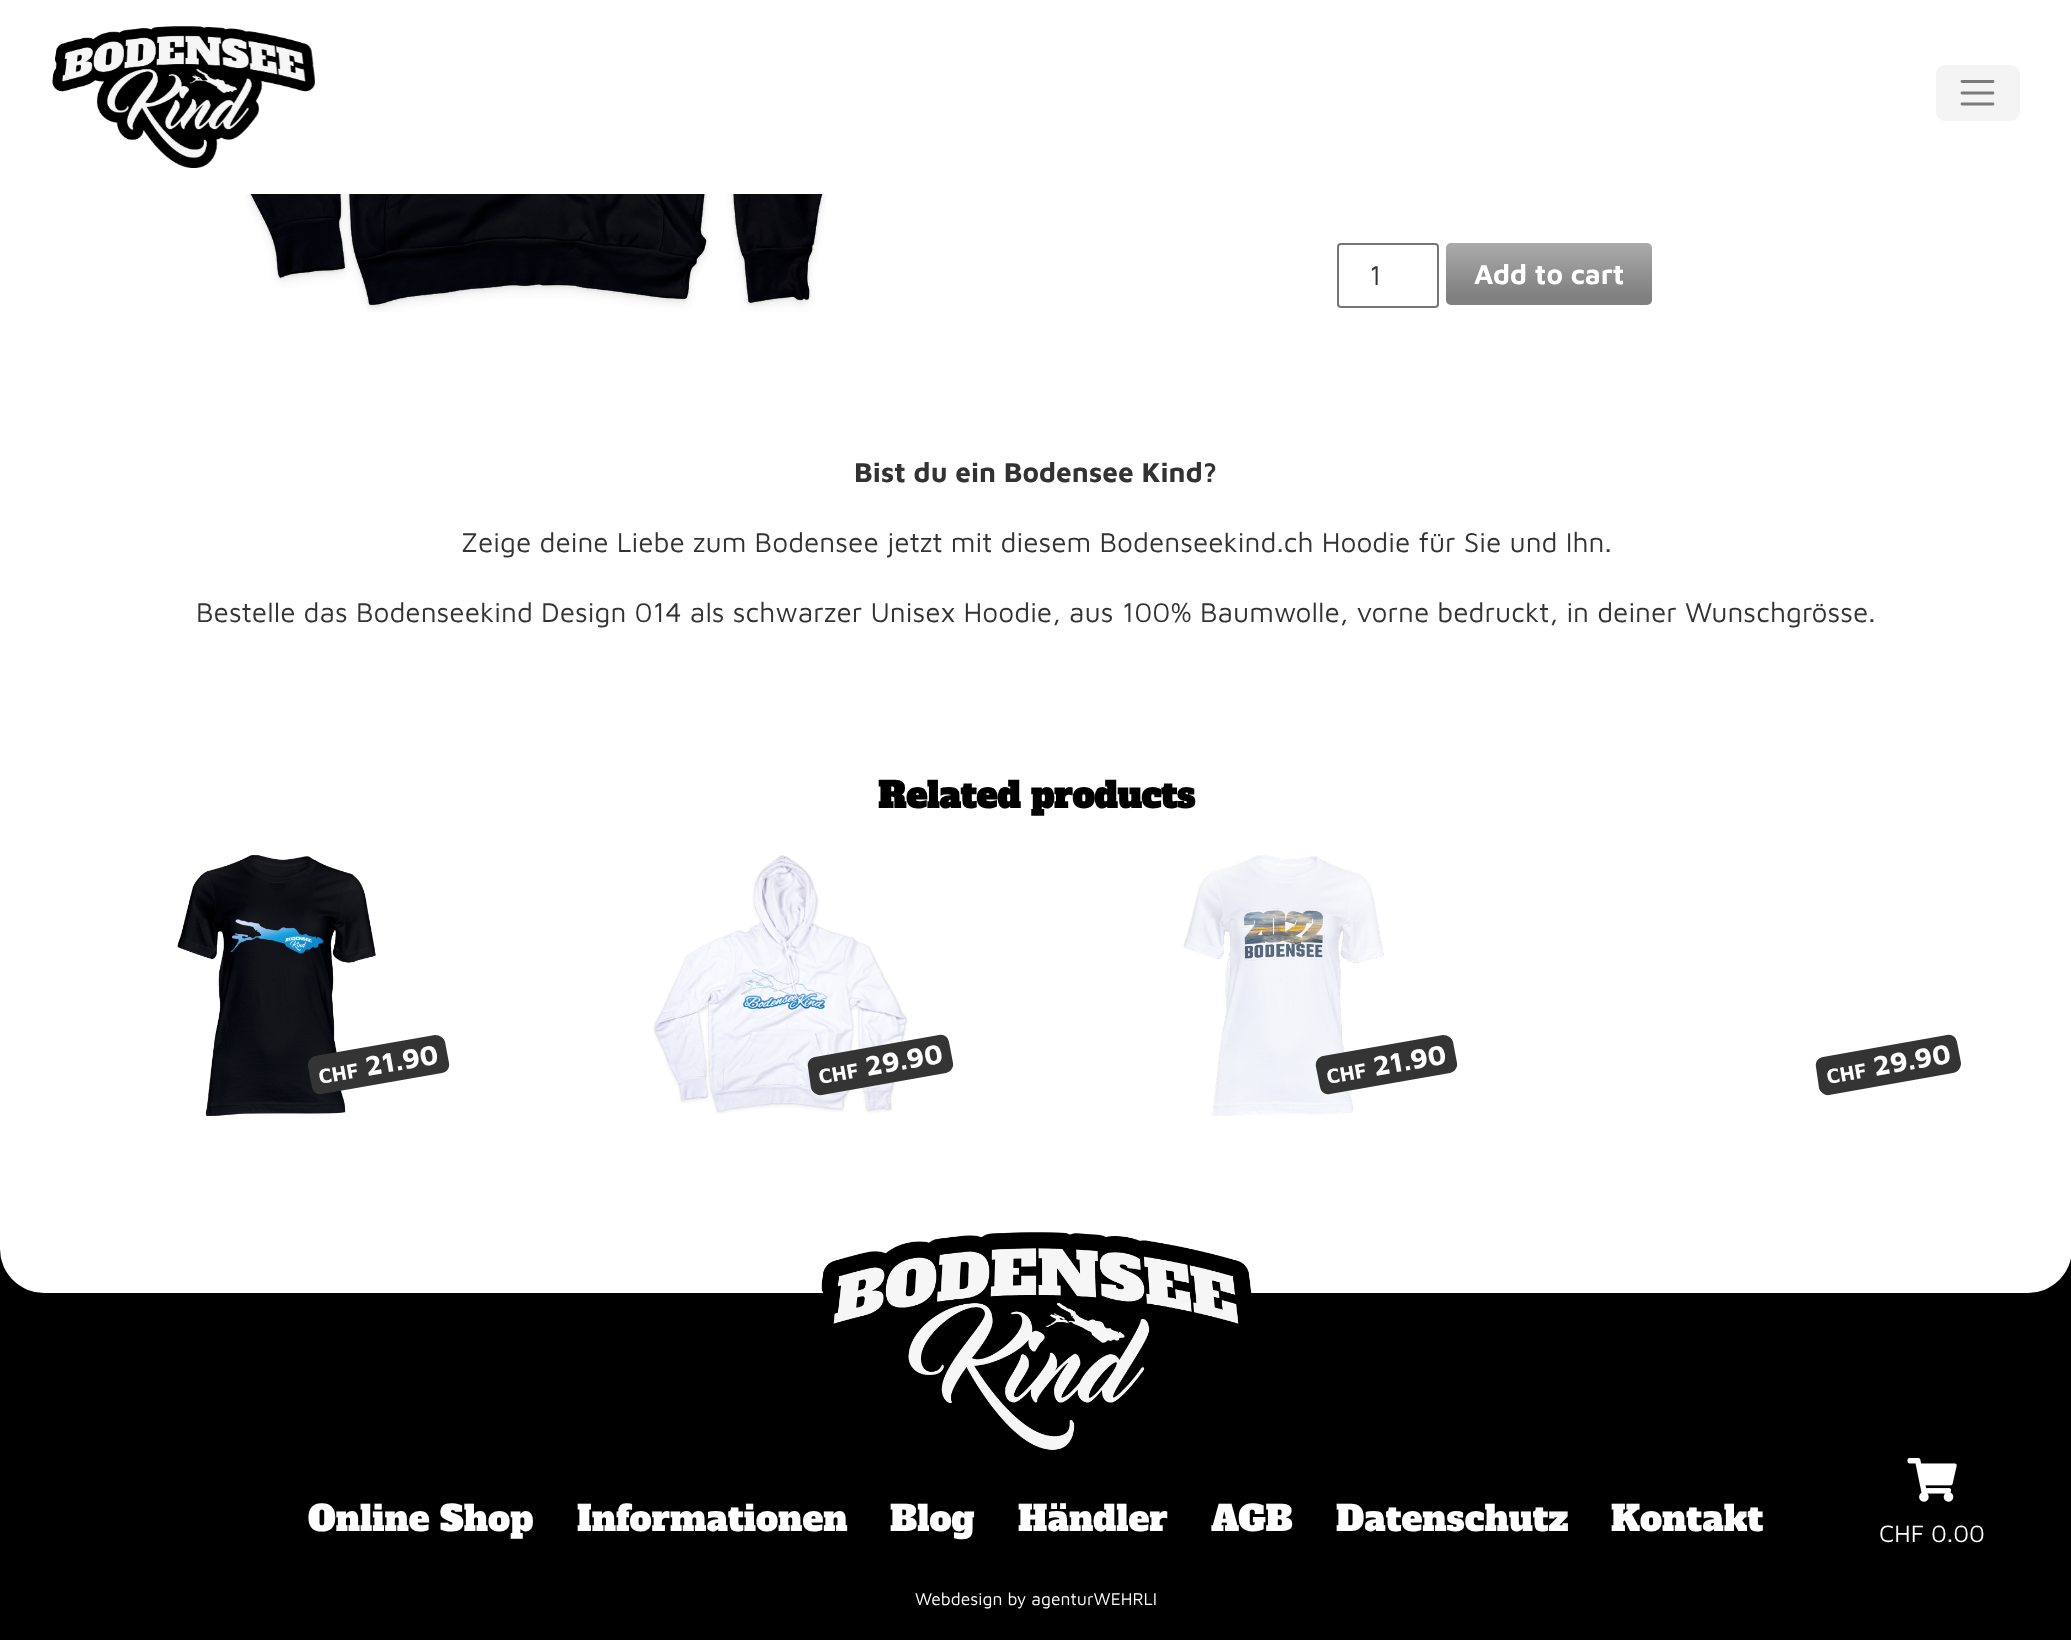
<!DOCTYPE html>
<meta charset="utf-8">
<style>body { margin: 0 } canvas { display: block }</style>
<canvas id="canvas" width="2071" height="1640"></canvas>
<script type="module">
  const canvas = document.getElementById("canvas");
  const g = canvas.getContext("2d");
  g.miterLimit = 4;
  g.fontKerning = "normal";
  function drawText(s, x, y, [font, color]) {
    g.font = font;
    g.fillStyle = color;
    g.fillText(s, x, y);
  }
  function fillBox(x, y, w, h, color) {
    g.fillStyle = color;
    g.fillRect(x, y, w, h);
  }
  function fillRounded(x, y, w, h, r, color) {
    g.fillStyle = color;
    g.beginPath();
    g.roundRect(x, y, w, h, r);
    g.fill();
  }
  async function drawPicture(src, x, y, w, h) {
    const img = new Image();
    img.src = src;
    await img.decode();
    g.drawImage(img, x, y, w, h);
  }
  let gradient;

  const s1 = ["28px Maven Pro", "#333333"];
  const s2 = ["bold 28px Maven Pro", "#FFFFFF"];
  const s3 = ["bold 28px Maven Pro", "#333333"];
  const s4 = ["bold 35px Alfa Slab One", "#000000"];
  const s5 = ["35px Alfa Slab One", "#FFFFFF"];
  const s6 = ["17.5px Maven Pro", "#FFFFFF"];
  const s7 = ["24.5px Maven Pro", "#FFFFFF"];

  fillBox(0, 0, 2071, 1640, "#000000");
  fillRounded(0, -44, 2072, 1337, 44, "#FFFFFF");
  await drawPicture("pic1.png", 52, 26, 263, 142);
  fillRounded(1936, 65, 84, 56, 9, "#F4F4F4");
  g.beginPath();
  g.moveTo(1962, 81.5);
  g.lineTo(1993, 81.5);
  g.moveTo(1962, 93);
  g.lineTo(1993, 93);
  g.moveTo(1962, 104);
  g.lineTo(1993, 104);
  g.strokeStyle = "#7A7A7A";
  g.lineWidth = 2.8;
  g.lineCap = "round";
  g.stroke();
  await drawPicture("pic2.png", 246, 194, 580, 118);
  g.beginPath();
  g.roundRect(1338, 244, 100, 63, 3);
  g.strokeStyle = "#767676";
  g.lineWidth = 2;
  g.stroke();
  drawText("1", 1369, 285, s1);
  gradient = g.createLinearGradient(1549, 305, 1549, 243);
  gradient.addColorStop(0.15, "#808080");
  gradient.addColorStop(1, "#ABABAB");
  g.fillStyle = gradient;
  g.beginPath();
  g.roundRect(1446, 243, 206, 62, 5);
  g.fill();
  drawText("Add to cart", 1474, 284, s2);
  drawText("Bist du ein Bodensee Kind?", 854, 482, s3);
  drawText("Zeige deine Liebe zum Bodensee jetzt mit diesem Bodenseekind.ch Hoodie für Sie und Ihn.", 461, 552, s1);
  drawText("Bestelle das Bodenseekind Design 014 als schwarzer Unisex Hoodie, aus 100% Baumwolle, vorne bedruckt, in deiner Wunschgrösse.", 196, 622, s1);
  drawText("Related products", 878, 808, s4);
  await drawPicture("pic3.png", 177, 855, 199, 261);
  g.fillStyle = "#343434";
  g.beginPath();
  g.moveTo(315, 1056);
  g.lineTo(435, 1035);
  g.bezierCurveTo(440, 1035, 444, 1038, 445, 1042);
  g.lineTo(449, 1063);
  g.bezierCurveTo(450, 1068, 447, 1072, 442, 1073);
  g.lineTo(322, 1094);
  g.bezierCurveTo(317, 1095, 313, 1092, 312, 1087);
  g.lineTo(308, 1067);
  g.bezierCurveTo(307, 1062, 311, 1057, 315, 1056);
  g.closePath();
  g.fill();
  g.font = "bold 21px Maven Pro";
  g.fillStyle = "#FFFFFF";
  g.save();
  g.translate(320, 1084);
  g.rotate(-10 * Math.PI / 180);
  g.fillText("CHF", 0, 0);
  g.restore();
  g.font = "bold 28px Maven Pro";
  g.save();
  g.translate(367, 1076);
  g.rotate(-10 * Math.PI / 180);
  g.fillText("21.90", 0, 0);
  g.restore();
  await drawPicture("pic4.png", 653, 855, 255, 259);
  g.fillStyle = "#343434";
  g.beginPath();
  g.moveTo(815, 1057);
  g.lineTo(939, 1035);
  g.bezierCurveTo(944, 1034, 948, 1037, 949, 1042);
  g.lineTo(953, 1063);
  g.bezierCurveTo(954, 1068, 950, 1072, 946, 1073);
  g.lineTo(822, 1095);
  g.bezierCurveTo(817, 1096, 812, 1092, 811, 1088);
  g.lineTo(808, 1067);
  g.bezierCurveTo(807, 1062, 810, 1058, 815, 1057);
  g.closePath();
  g.fill();
  g.font = "bold 21px Maven Pro";
  g.fillStyle = "#FFFFFF";
  g.save();
  g.translate(820, 1084);
  g.rotate(-10 * Math.PI / 180);
  g.fillText("CHF", 0, 0);
  g.restore();
  g.font = "bold 28px Maven Pro";
  g.save();
  g.translate(867, 1076);
  g.rotate(-10 * Math.PI / 180);
  g.fillText("29.90", 0, 0);
  g.restore();
  await drawPicture("pic5.png", 1183, 855, 201, 261);
  g.fillStyle = "#343434";
  g.beginPath();
  g.moveTo(1323, 1056);
  g.lineTo(1443, 1035);
  g.bezierCurveTo(1448, 1035, 1452, 1038, 1453, 1042);
  g.lineTo(1457, 1063);
  g.bezierCurveTo(1458, 1068, 1454, 1072, 1450, 1073);
  g.lineTo(1330, 1094);
  g.bezierCurveTo(1325, 1095, 1321, 1092, 1320, 1087);
  g.lineTo(1316, 1067);
  g.bezierCurveTo(1315, 1062, 1318, 1057, 1323, 1056);
  g.closePath();
  g.fill();
  g.font = "bold 21px Maven Pro";
  g.fillStyle = "#FFFFFF";
  g.save();
  g.translate(1328, 1084);
  g.rotate(-10 * Math.PI / 180);
  g.fillText("CHF", 0, 0);
  g.restore();
  g.font = "bold 28px Maven Pro";
  g.save();
  g.translate(1375, 1076);
  g.rotate(-10 * Math.PI / 180);
  g.fillText("21.90", 0, 0);
  g.restore();
  g.fillStyle = "#343434";
  g.beginPath();
  g.moveTo(1823, 1057);
  g.lineTo(1947, 1035);
  g.bezierCurveTo(1952, 1034, 1956, 1037, 1957, 1042);
  g.lineTo(1961, 1063);
  g.bezierCurveTo(1961, 1068, 1958, 1072, 1953, 1073);
  g.lineTo(1829, 1095);
  g.bezierCurveTo(1825, 1096, 1820, 1092, 1819, 1088);
  g.lineTo(1816, 1067);
  g.bezierCurveTo(1815, 1062, 1818, 1058, 1823, 1057);
  g.closePath();
  g.fill();
  g.font = "bold 21px Maven Pro";
  g.fillStyle = "#FFFFFF";
  g.save();
  g.translate(1828, 1084);
  g.rotate(-10 * Math.PI / 180);
  g.fillText("CHF", 0, 0);
  g.restore();
  g.font = "bold 28px Maven Pro";
  g.save();
  g.translate(1875, 1076);
  g.rotate(-10 * Math.PI / 180);
  g.fillText("29.90", 0, 0);
  g.restore();
  await drawPicture("pic6.png", 821, 1232, 431, 218);
  drawText("Online Shop", 308, 1531, s5);
  drawText("Informationen", 577, 1531, s5);
  drawText("Blog", 890, 1531, s5);
  drawText("Händler", 1018, 1531, s5);
  drawText("AGB", 1211, 1531, s5);
  drawText("Datenschutz", 1336, 1531, s5);
  drawText("Kontakt", 1611, 1531, s5);
  drawText("Webdesign by agenturWEHRLI", 915, 1605, s6);
  await drawPicture("pic7.png", 1907, 1458, 50, 44);
  drawText("CHF 0.00", 1879, 1542, s7);
</script>
